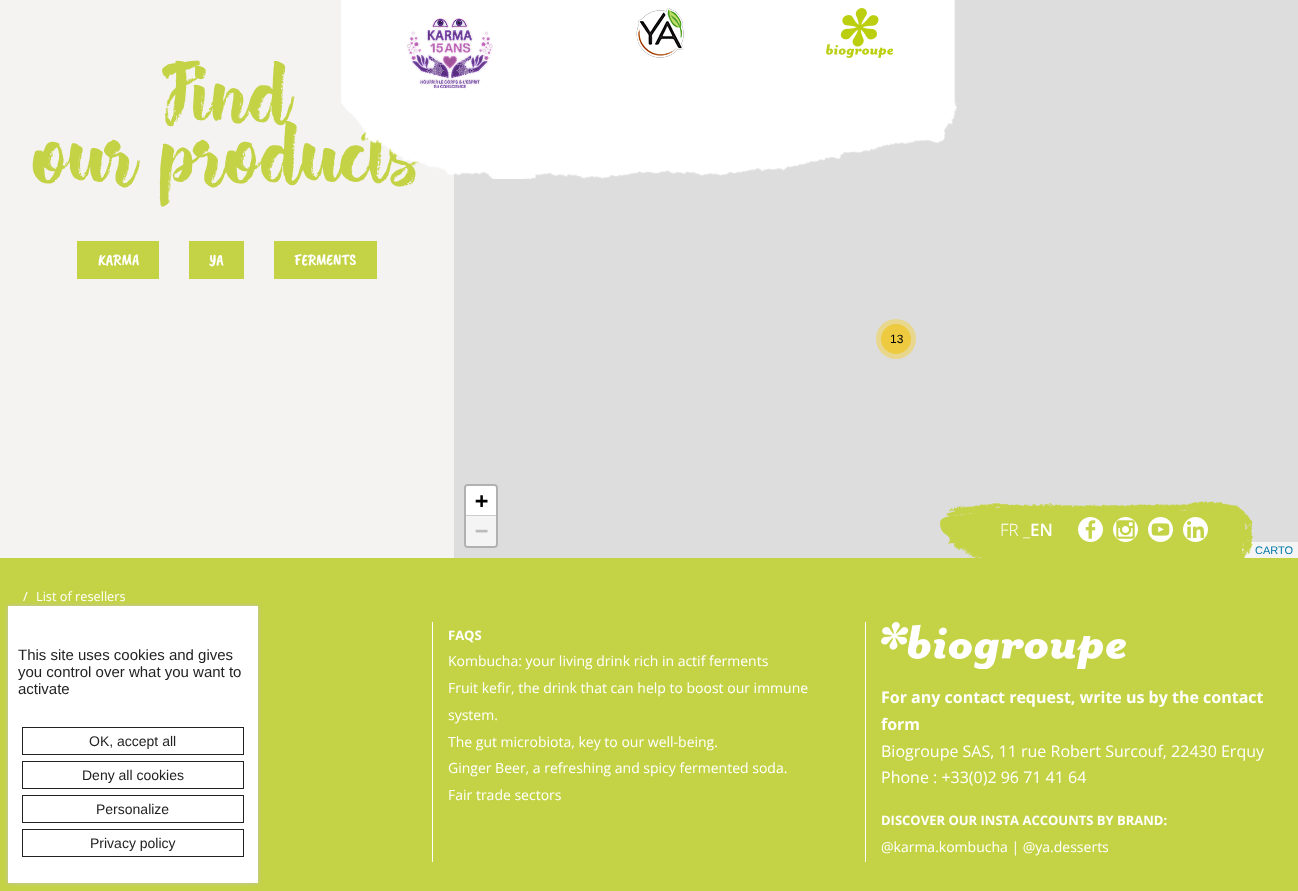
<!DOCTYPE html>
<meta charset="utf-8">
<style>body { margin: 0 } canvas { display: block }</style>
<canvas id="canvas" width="1298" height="891"></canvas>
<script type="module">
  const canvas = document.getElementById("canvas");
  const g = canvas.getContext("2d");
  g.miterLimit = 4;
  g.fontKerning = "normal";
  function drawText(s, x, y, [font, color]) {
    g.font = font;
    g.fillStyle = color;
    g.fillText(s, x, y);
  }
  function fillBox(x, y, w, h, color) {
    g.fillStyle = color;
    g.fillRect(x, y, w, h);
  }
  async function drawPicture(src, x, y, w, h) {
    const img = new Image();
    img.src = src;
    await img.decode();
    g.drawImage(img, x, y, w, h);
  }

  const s1 = ["80px 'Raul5'", "#C4D345"];
  const s2 = ["16px Caveat Brush", "#FFFFFF"];
  const s3 = ["12px Liberation Sans", "#000000"];
  const s4 = ["bold 22px DejaVu Sans Mono", "#000000"];
  const s5 = ["bold 22px DejaVu Sans Mono", "#BBBBBB"];
  const s6 = ["11px Liberation Sans", "#0078A8"];
  const s7 = ["300 17px Open Sans", "#FFFFFF"];
  const s8 = ["600 17px Open Sans", "#FFFFFF"];
  const s9 = ["12.75px Open Sans", "#FFFFFF"];
  const s10 = ["bold 13px Open Sans", "#FFFFFF"];
  const s11 = ["14px Open Sans", "#FFFFFF"];
  const s12 = ["bold 16px Open Sans", "#FFFFFF"];
  const s13 = ["16px Open Sans", "#FFFFFF"];
  const s14 = ["15px Liberation Sans", "#222222"];
  const s15 = ["14px Liberation Sans", "#222222"];

  fillBox(0, 0, 1298, 891, "#F5F2F2");
  drawText("our products", 34, 182, s1);
  fillBox(454, 0, 844, 558, "#DDDDDD");
  await drawPicture("pic1.png", 341, 0, 616, 179);
  await drawPicture("pic2.png", 407, 18, 86, 71);
  await drawPicture("pic3.png", 636, 8, 48, 50);
  await drawPicture("pic4.png", 826, 8, 67, 50);
  drawText("Find", 163, 122, s1);
  fillBox(77, 241, 82, 38, "#C4D345");
  drawText("KARMA", 98, 265, s2);
  fillBox(189, 241, 55, 38, "#C4D345");
  drawText("YA", 209, 265, s2);
  fillBox(274, 241, 103, 38, "#C4D345");
  drawText("FERMENTS", 294, 265, s2);
  g.fillStyle = "#E9D78D";
  g.beginPath();
  g.arc(896, 339, 20, 0, Math.PI * 2);
  g.fill();
  g.fillStyle = "#EDCA40";
  g.beginPath();
  g.arc(896, 339, 15, 0, Math.PI * 2);
  g.fill();
  drawText("13", 890, 343, s3);
  g.beginPath();
  g.roundRect(465, 485, 32, 62, 3);
  g.strokeStyle = "#B1B1B1";
  g.lineWidth = 2;
  g.stroke();
  g.fillStyle = "#FFFFFF";
  g.beginPath();
  g.roundRect(466, 486, 30, 30, [2, 2, 0, 0]);
  g.fill();
  fillBox(466, 515, 30, 1, "#CCCCCC");
  drawText("+", 475, 508, s4);
  g.fillStyle = "#F4F4F4";
  g.beginPath();
  g.roundRect(466, 516, 30, 30, [0, 0, 2, 2]);
  g.fill();
  drawText("−", 475, 538, s5);
  fillBox(1242, 542, 56, 16, "#F5F5F5");
  drawText("CARTO", 1255, 554, s6);
  await drawPicture("pic5.png", 940, 501, 313, 57);
  drawText("FR _", 1000, 536, s7);
  drawText("EN", 1030, 536, s8);
  await drawPicture("pic6.png", 1078, 517, 25, 25);
  await drawPicture("pic7.png", 1113, 517, 25, 25);
  await drawPicture("pic8.png", 1148, 517, 25, 25);
  await drawPicture("pic9.png", 1183, 517, 25, 25);
  fillBox(0, 558, 1298, 333, "#C4D345");
  drawText("/", 23, 601, s9);
  drawText("List of resellers", 36, 601, s9);
  fillBox(432, 622, 1, 240, "#FFFFFF");
  drawText("FAQS", 448, 640, s10);
  drawText("Kombucha: your living drink rich in actif ferments", 448, 666, s11);
  drawText("Fruit kefir, the drink that can help to boost our immune", 448, 693, s11);
  drawText("system.", 448, 720, s11);
  drawText("The gut microbiota, key to our well-being.", 448, 747, s11);
  drawText("Ginger Beer, a refreshing and spicy fermented soda.", 448, 773, s11);
  drawText("Fair trade sectors", 448, 800, s11);
  fillBox(865, 622, 1, 240, "#FFFFFF");
  await drawPicture("pic10.png", 881, 622, 245, 47);
  drawText("For any contact request, write us by the contact", 881, 703, s12);
  drawText("form", 881, 730, s12);
  drawText("Biogroupe SAS, 11 rue Robert Surcouf, 22430 Erquy", 881, 757, s13);
  drawText("Phone : +33(0)2 96 71 41 64", 881, 783, s13);
  drawText("DISCOVER OUR INSTA ACCOUNTS BY BRAND:", 881, 825, s10);
  drawText("@karma.kombucha | @ya.desserts", 881, 852, s11);
  g.fillStyle = "#C0C0C0";
  g.filter = "blur(2px)";
  g.beginPath();
  g.rect(8, 606, 250, 277);
  g.fill();
  g.filter = "none";
  fillBox(8, 606, 250, 277, "#FFFFFF");
  drawText("This site uses cookies and gives", 18, 660, s14);
  drawText("you control over what you want to", 18, 677, s14);
  drawText("activate", 18, 694, s14);
  g.strokeStyle = "#222222";
  g.lineWidth = 1;
  g.strokeRect(22.5, 727.5, 221, 27);
  drawText("OK, accept all", 89, 746, s15);
  g.strokeRect(22.5, 761.5, 221, 27);
  drawText("Deny all cookies", 82, 780, s15);
  g.strokeRect(22.5, 795.5, 221, 27);
  drawText("Personalize", 96, 814, s15);
  g.strokeRect(22.5, 829.5, 221, 27);
  drawText("Privacy policy", 90, 848, s15);
</script>
